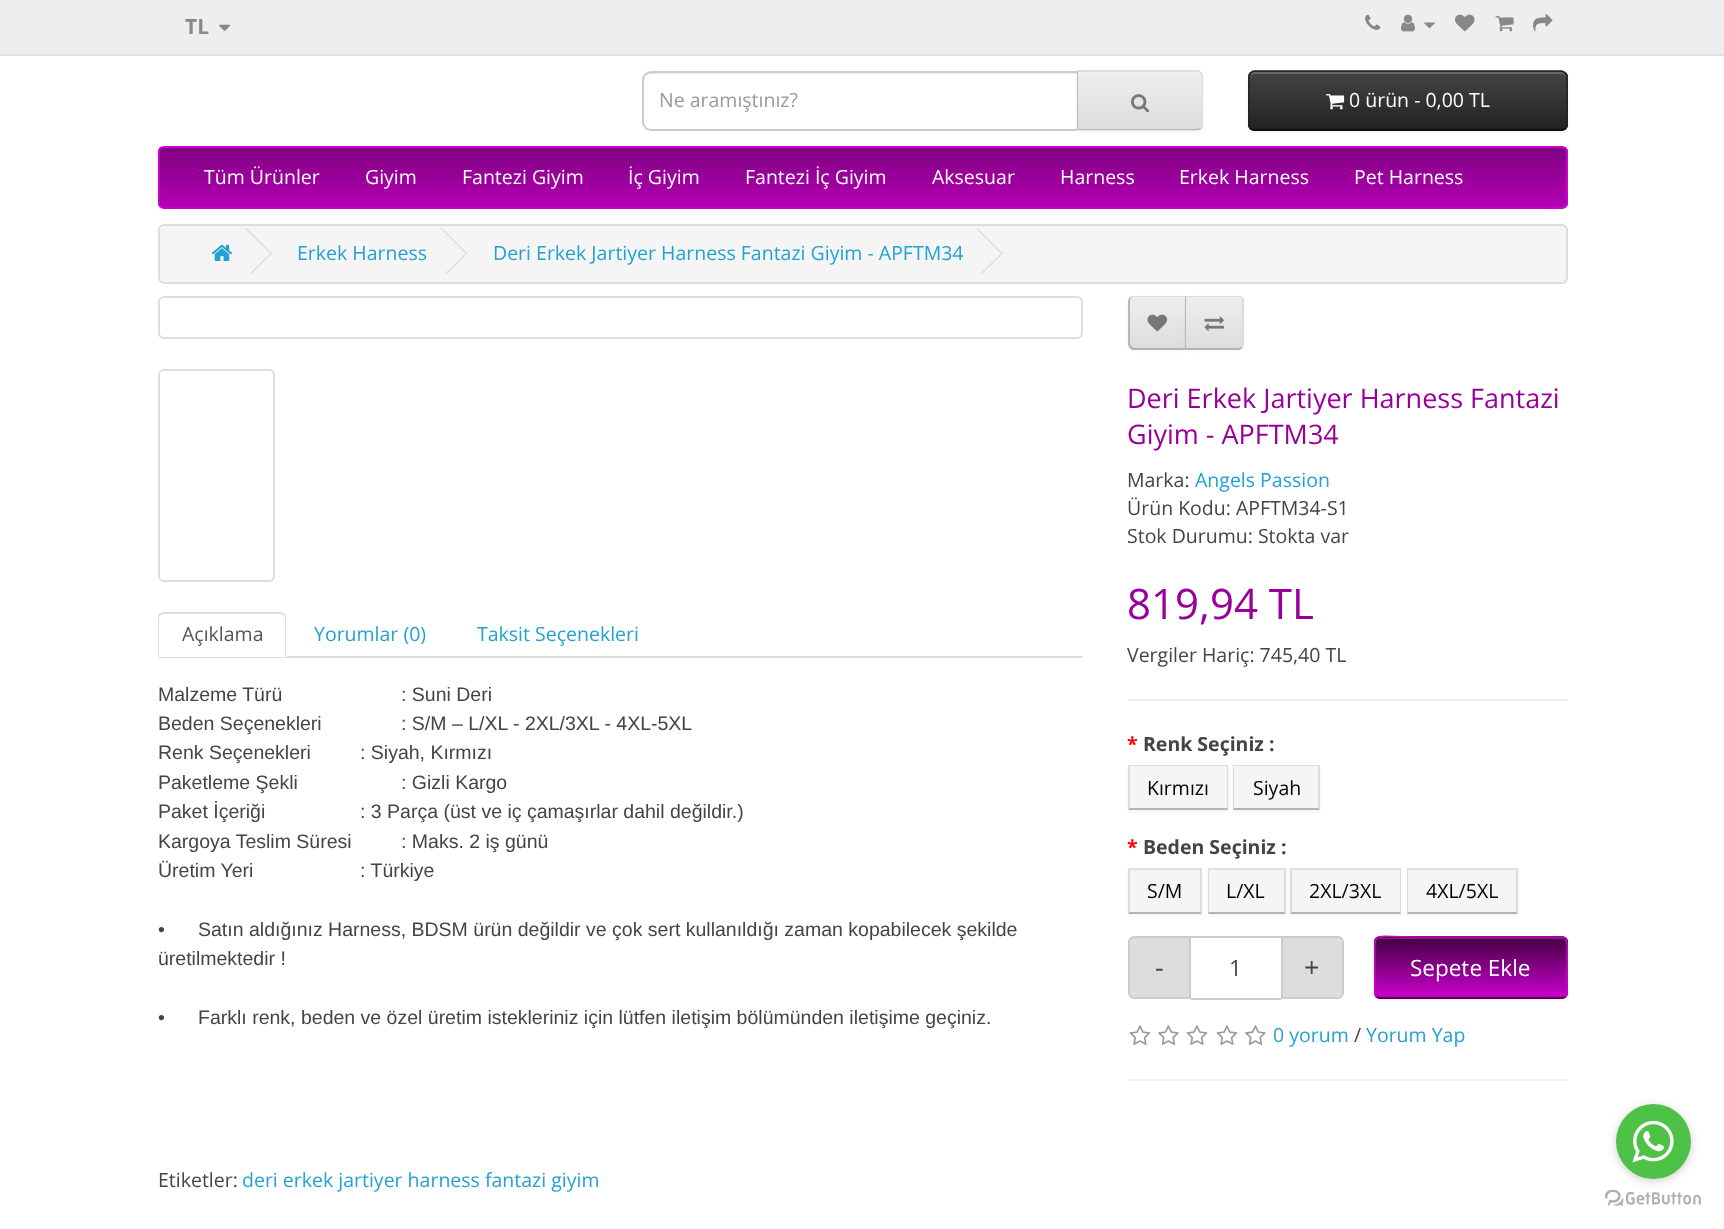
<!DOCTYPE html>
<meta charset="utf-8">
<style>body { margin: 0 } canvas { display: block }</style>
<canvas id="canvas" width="1724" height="1229"></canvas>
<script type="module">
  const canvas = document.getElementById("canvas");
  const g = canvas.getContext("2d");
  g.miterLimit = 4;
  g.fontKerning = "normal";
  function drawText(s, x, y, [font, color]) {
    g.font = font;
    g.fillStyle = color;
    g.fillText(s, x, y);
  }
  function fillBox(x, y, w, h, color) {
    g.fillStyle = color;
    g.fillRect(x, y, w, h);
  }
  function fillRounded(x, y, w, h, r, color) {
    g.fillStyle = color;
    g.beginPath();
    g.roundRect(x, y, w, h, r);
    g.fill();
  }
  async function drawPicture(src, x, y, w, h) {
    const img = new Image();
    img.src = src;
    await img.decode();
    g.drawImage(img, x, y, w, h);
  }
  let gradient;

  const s1 = ["bold 21px Open Sans", "#888888"];
  const s2 = ["19.5px Open Sans", "#999999"];
  const s3 = ["19.5px Open Sans", "#FFFFFF"];
  const s4 = ["19.5px Open Sans", "#23A1D1"];
  const s5 = ["19.5px Open Sans", "#555555"];
  const s6 = ["19.5px Liberation Sans", "#444444"];
  const s7 = ["27px Open Sans", "#990099"];
  const s8 = ["19.5px Open Sans", "#444444"];
  const s9 = ["42px Open Sans", "#990099"];
  const s10 = ["bold 19.5px Open Sans", "#FF0000"];
  const s11 = ["bold 19.5px Open Sans", "#444444"];
  const s12 = ["19.5px Open Sans", "#000000"];
  const s13 = ["27px Open Sans", "#444444"];
  const s14 = ["22.5px Open Sans", "#444444"];
  const s15 = ["22.5px Open Sans", "#FFFFFF"];

  fillBox(0, 0, 1724, 1229, "#FFFFFF");
  fillBox(0, 0, 1724, 54, "#EEEEEE");
  fillBox(0, 54, 1724, 2, "#E2E2E2");
  drawText("TL", 185, 34, s1);
  await drawPicture("pic1.png", 219, 24, 12, 7);
  await drawPicture("pic2.png", 1365, 14, 16, 16);
  await drawPicture("pic3.png", 1401, 14, 14, 18);
  g.beginPath();
  g.moveTo(1423.5, 22.5);
  g.lineTo(1435.5, 22.5);
  g.lineTo(1429.5, 28.5);
  g.closePath();
  g.fill();
  await drawPicture("pic4.png", 1455, 14, 20, 18);
  await drawPicture("pic5.png", 1495, 16, 19, 16);
  await drawPicture("pic6.png", 1533, 14, 20, 18);
  g.fillStyle = "#ECECEC";
  g.beginPath();
  g.moveTo(651, 74);
  g.lineTo(1077, 74);
  g.lineTo(1077, 72);
  g.lineTo(652, 72);
  g.bezierCurveTo(647, 72, 644, 76, 644, 81);
  g.bezierCurveTo(644, 77, 647, 74, 651, 74);
  g.closePath();
  g.fill();
  g.beginPath();
  g.roundRect(643, 72, 435, 58, [8, 0, 0, 8]);
  g.strokeStyle = "#CCCCCC";
  g.lineWidth = 2;
  g.stroke();
  drawText("Ne aramıştınız?", 659, 107, s2);
  g.fillStyle = "rgba(0, 0, 0, 0.05)";
  g.filter = "blur(1.5px)";
  g.beginPath();
  g.roundRect(1077, 72, 126, 60, 6);
  g.fill();
  g.filter = "none";
  g.fillStyle = "#E7E7E7";
  g.beginPath();
  g.roundRect(1077, 71, 126, 60, [0, 6, 6, 0]);
  g.fill();
  g.save();
  g.beginPath();
  g.roundRect(1077, 71, 126, 60, [0, 6, 6, 0]);
  g.clip();
  gradient = g.createLinearGradient(1140, 72, 1140, 129);
  gradient.addColorStop(0, "#EEEEEE");
  gradient.addColorStop(1, "#DDDDDD");
  g.fillStyle = gradient;
  g.fillRect(1078, 72, 125, 57);
  g.restore();
  g.fillStyle = "#F1F1F1";
  g.beginPath();
  g.moveTo(1079, 72);
  g.lineTo(1079, 74);
  g.lineTo(1197, 74);
  g.bezierCurveTo(1199, 74, 1202, 76, 1202, 78);
  g.bezierCurveTo(1202, 75, 1200, 72, 1197, 72);
  g.closePath();
  g.fill();
  g.fillStyle = "#DDDDDD";
  g.beginPath();
  g.moveTo(1077, 70);
  g.lineTo(1199, 70);
  g.lineTo(1201, 72);
  g.lineTo(1200, 73);
  g.bezierCurveTo(1199, 72, 1198, 72, 1197, 72);
  g.lineTo(1078, 72);
  g.closePath();
  g.fill();
  g.beginPath();
  g.moveTo(1203, 124);
  g.lineTo(1203, 76);
  g.bezierCurveTo(1203, 75, 1202, 73, 1201, 72);
  g.lineTo(1200, 73);
  g.lineTo(1202, 76);
  g.lineTo(1202, 125);
  g.lineTo(1200, 128);
  g.lineTo(1201, 129);
  g.bezierCurveTo(1202, 128, 1203, 126, 1203, 124);
  g.closePath();
  g.fill();
  g.fillStyle = "#B3B3B3";
  g.beginPath();
  g.moveTo(1201, 129);
  g.lineTo(1198, 130);
  g.lineTo(1078, 130);
  g.lineTo(1078, 129);
  g.lineTo(1197, 129);
  g.lineTo(1200, 128);
  g.closePath();
  g.fill();
  g.fillStyle = "#B7B7B7";
  g.beginPath();
  g.moveTo(1078, 72);
  g.lineTo(1077, 70);
  g.lineTo(1077, 130);
  g.lineTo(1078, 129);
  g.closePath();
  g.fill();
  await drawPicture("pic7.png", 1131, 94, 19, 19);
  g.fillStyle = "rgba(0, 0, 0, 0.05)";
  g.filter = "blur(1.5px)";
  g.beginPath();
  g.roundRect(1248, 72, 320, 60, 6);
  g.fill();
  g.filter = "none";
  fillRounded(1248, 71, 320, 60, 6, "#363636");
  g.save();
  g.beginPath();
  g.roundRect(1248, 71, 320, 60, 6);
  g.clip();
  gradient = g.createLinearGradient(1408, 72, 1408, 129);
  gradient.addColorStop(0, "#444444");
  gradient.addColorStop(1, "#222222");
  g.fillStyle = gradient;
  g.fillRect(1248, 72, 320, 57);
  g.restore();
  g.fillStyle = "#696969";
  g.beginPath();
  g.moveTo(1254, 74);
  g.lineTo(1562, 74);
  g.bezierCurveTo(1564, 74, 1566, 76, 1566, 78);
  g.bezierCurveTo(1566, 75, 1564, 72, 1561, 72);
  g.lineTo(1255, 72);
  g.bezierCurveTo(1252, 72, 1250, 75, 1250, 78);
  g.bezierCurveTo(1250, 76, 1252, 74, 1254, 74);
  g.closePath();
  g.fill();
  g.beginPath();
  g.moveTo(1565, 128);
  g.bezierCurveTo(1564, 129, 1563, 130, 1561.5, 130);
  g.lineTo(1254, 130);
  g.bezierCurveTo(1252.5, 130, 1251.5, 129, 1250.5, 128);
  g.strokeStyle = "#000000";
  g.lineWidth = 1.5;
  g.stroke();
  g.beginPath();
  g.moveTo(1250.5, 128);
  g.bezierCurveTo(1249.5, 127, 1249, 126, 1249, 124.5);
  g.lineTo(1249, 76.5);
  g.bezierCurveTo(1249, 75, 1249.5, 74, 1250.5, 73);
  g.bezierCurveTo(1251.5, 72, 1252.5, 71, 1254, 71);
  g.lineTo(1561.5, 71);
  g.bezierCurveTo(1563, 71, 1564, 72, 1565, 73);
  g.bezierCurveTo(1566, 74, 1567, 75, 1567, 76.5);
  g.lineTo(1567, 124.5);
  g.bezierCurveTo(1567, 126, 1566, 127, 1565, 128);
  g.strokeStyle = "#222222";
  g.stroke();
  await drawPicture("pic8.png", 1326, 94, 19, 16);
  drawText("0 ürün - 0,00 TL", 1349, 107, s3);
  g.save();
  g.beginPath();
  g.roundRect(158, 146, 1410, 63, 6);
  g.clip();
  gradient = g.createLinearGradient(863, 147, 863, 207);
  gradient.addColorStop(0, "#800080");
  gradient.addColorStop(1, "#B300B3");
  g.fillStyle = gradient;
  g.fillRect(158, 147, 1410, 60);
  g.restore();
  g.beginPath();
  g.roundRect(159, 147, 1408, 61, 5);
  g.strokeStyle = "#CC00CC";
  g.lineWidth = 2;
  g.stroke();
  drawText("Tüm Ürünler", 204, 184, s3);
  drawText("Giyim", 365, 184, s3);
  drawText("Fantezi Giyim", 462, 184, s3);
  drawText("İç Giyim", 628, 184, s3);
  drawText("Fantezi İç Giyim", 745, 184, s3);
  drawText("Aksesuar", 932, 184, s3);
  drawText("Harness", 1060, 184, s3);
  drawText("Erkek Harness", 1179, 184, s3);
  drawText("Pet Harness", 1354, 184, s3);
  g.fillStyle = "#F5F5F5";
  g.beginPath();
  g.roundRect(159, 225, 1408, 58, 5);
  g.fill();
  g.strokeStyle = "#DDDDDD";
  g.stroke();
  await drawPicture("pic9.png", 211, 244, 21, 17);
  g.fillStyle = "#DDDDDD";
  g.beginPath();
  g.moveTo(245.5, 229);
  g.lineTo(247, 228);
  g.lineTo(272, 253.5);
  g.lineTo(271, 254.5);
  g.closePath();
  g.fill();
  g.beginPath();
  g.moveTo(250, 273.5);
  g.lineTo(271, 252.5);
  g.lineTo(272, 253.5);
  g.lineTo(251, 274.5);
  g.closePath();
  g.fill();
  drawText("Erkek Harness", 297, 260, s4);
  g.fillStyle = "#DDDDDD";
  g.beginPath();
  g.moveTo(441, 229);
  g.lineTo(442, 228);
  g.lineTo(467.5, 253.5);
  g.lineTo(466.5, 254.5);
  g.closePath();
  g.fill();
  g.beginPath();
  g.moveTo(445, 273.5);
  g.lineTo(466.5, 252.5);
  g.lineTo(467.5, 253.5);
  g.lineTo(446, 274.5);
  g.closePath();
  g.fill();
  drawText("Deri Erkek Jartiyer Harness Fantazi Giyim - APFTM34", 493, 260, s4);
  g.fillStyle = "#DDDDDD";
  g.beginPath();
  g.moveTo(976.5, 229);
  g.lineTo(977.5, 228);
  g.lineTo(1003, 253.5);
  g.lineTo(1002, 254.5);
  g.closePath();
  g.fill();
  g.beginPath();
  g.moveTo(980.5, 273.5);
  g.lineTo(1002, 252.5);
  g.lineTo(1003, 253.5);
  g.lineTo(981.5, 274.5);
  g.closePath();
  g.fill();
  g.beginPath();
  g.roundRect(159, 297, 923, 41, 5);
  g.stroke();
  g.beginPath();
  g.roundRect(159, 370, 115, 211, 5);
  g.stroke();
  fillBox(158, 656, 925, 2, "#DDDDDD");
  g.fillStyle = "#FFFFFF";
  g.beginPath();
  g.roundRect(158, 612, 129, 45, [6, 6, 0, 0]);
  g.fill();
  g.fillStyle = "#DDDDDD";
  g.beginPath();
  g.moveTo(164, 612);
  g.bezierCurveTo(162, 612, 160, 613, 159, 614);
  g.lineTo(161, 615);
  g.lineTo(163, 614);
  g.lineTo(281, 614);
  g.lineTo(283, 615);
  g.lineTo(285, 614);
  g.bezierCurveTo(284, 613, 282, 612, 280, 612);
  g.closePath();
  g.fill();
  g.beginPath();
  g.moveTo(285, 614);
  g.bezierCurveTo(286, 615, 286, 617, 286, 618);
  g.lineTo(286, 656);
  g.lineTo(285, 656);
  g.lineTo(285, 618);
  g.bezierCurveTo(285, 617, 284, 616, 283, 615);
  g.closePath();
  g.fill();
  g.beginPath();
  g.moveTo(159, 614);
  g.bezierCurveTo(158, 615, 158, 617, 158, 618);
  g.lineTo(158, 656);
  g.lineTo(159, 656);
  g.lineTo(159, 618);
  g.bezierCurveTo(159, 617, 160, 616, 161, 615);
  g.closePath();
  g.fill();
  drawText("Açıklama", 182, 641, s5);
  drawText("Yorumlar (0)", 314, 641, s4);
  drawText("Taksit Seçenekleri", 477, 641, s4);
  drawText("Malzeme Türü", 158, 701, s6);
  drawText(": Suni Deri", 401, 701, s6);
  drawText("Beden Seçenekleri", 158, 730, s6);
  drawText(": S/M – L/XL - 2XL/3XL - 4XL-5XL", 401, 730, s6);
  drawText("Renk Seçenekleri", 158, 759, s6);
  drawText(": Siyah, Kırmızı", 360, 759, s6);
  drawText("Paketleme Şekli", 158, 789, s6);
  drawText(": Gizli Kargo", 401, 789, s6);
  drawText("Paket İçeriği", 158, 818, s6);
  drawText(": 3 Parça (üst ve iç çamaşırlar dahil değildir.)", 360, 818, s6);
  drawText("Kargoya Teslim Süresi", 158, 848, s6);
  drawText(": Maks. 2 iş günü", 401, 848, s6);
  drawText("Üretim Yeri", 158, 877, s6);
  drawText(": Türkiye", 360, 877, s6);
  drawText("•", 158, 936, s6);
  drawText("Satın aldığınız Harness, BDSM ürün değildir ve çok sert kullanıldığı zaman kopabilecek şekilde", 198, 936, s6);
  drawText("üretilmektedir !", 158, 965, s6);
  drawText("•", 158, 1024, s6);
  drawText("Farklı renk, beden ve özel üretim istekleriniz için lütfen iletişim bölümünden iletişime geçiniz.", 198, 1024, s6);
  g.fillStyle = "rgba(0, 0, 0, 0.05)";
  g.filter = "blur(1.5px)";
  g.beginPath();
  g.roundRect(1128, 297, 59, 54, 6);
  g.fill();
  g.filter = "none";
  g.fillStyle = "#E7E7E7";
  g.beginPath();
  g.roundRect(1128, 296, 59, 54, [6, 0, 0, 6]);
  g.fill();
  g.save();
  g.beginPath();
  g.roundRect(1128, 296, 59, 54, [6, 0, 0, 6]);
  g.clip();
  gradient = g.createLinearGradient(1157, 297, 1157, 348);
  gradient.addColorStop(0, "#EEEEEE");
  gradient.addColorStop(1, "#DDDDDD");
  g.fillStyle = gradient;
  g.fillRect(1128, 297, 57, 51);
  g.restore();
  g.fillStyle = "#F1F1F1";
  g.beginPath();
  g.moveTo(1134, 298);
  g.lineTo(1185, 298);
  g.lineTo(1185, 297);
  g.lineTo(1135, 297);
  g.bezierCurveTo(1132, 297, 1130, 299, 1130, 302);
  g.lineTo(1130, 303);
  g.bezierCurveTo(1130, 301, 1132, 298, 1134, 298);
  g.closePath();
  g.fill();
  g.fillStyle = "#DDDDDD";
  g.beginPath();
  g.moveTo(1134, 296);
  g.bezierCurveTo(1133, 296, 1131, 296, 1130, 297);
  g.lineTo(1131, 299);
  g.lineTo(1133, 297);
  g.lineTo(1185, 297);
  g.lineTo(1186, 296);
  g.closePath();
  g.fill();
  g.fillStyle = "#B3B3B3";
  g.beginPath();
  g.moveTo(1132, 350);
  g.lineTo(1130, 348);
  g.lineTo(1131, 346);
  g.lineTo(1134, 348);
  g.lineTo(1185, 348);
  g.lineTo(1186, 349);
  g.lineTo(1186, 350);
  g.closePath();
  g.fill();
  g.fillStyle = "#B7B7B7";
  g.beginPath();
  g.moveTo(1128, 302);
  g.lineTo(1128, 344);
  g.bezierCurveTo(1128, 345, 1129, 347, 1130, 348);
  g.lineTo(1131, 346);
  g.lineTo(1130, 344);
  g.lineTo(1130, 302);
  g.bezierCurveTo(1130, 301, 1130, 299, 1131, 299);
  g.lineTo(1130, 297);
  g.bezierCurveTo(1129, 298, 1128, 300, 1128, 302);
  g.closePath();
  g.fill();
  await drawPicture("pic10.png", 1147, 314, 20, 18);
  g.fillStyle = "rgba(0, 0, 0, 0.05)";
  g.filter = "blur(1.5px)";
  g.beginPath();
  g.roundRect(1185, 297, 59, 54, 6);
  g.fill();
  g.filter = "none";
  g.fillStyle = "#E7E7E7";
  g.beginPath();
  g.roundRect(1185, 296, 59, 54, [0, 6, 6, 0]);
  g.fill();
  g.save();
  g.beginPath();
  g.roundRect(1185, 296, 59, 54, [0, 6, 6, 0]);
  g.clip();
  gradient = g.createLinearGradient(1214, 297, 1214, 348);
  gradient.addColorStop(0, "#EEEEEE");
  gradient.addColorStop(1, "#DDDDDD");
  g.fillStyle = gradient;
  g.fillRect(1186, 297, 58, 51);
  g.restore();
  g.fillStyle = "#F1F1F1";
  g.beginPath();
  g.moveTo(1187, 297);
  g.lineTo(1187, 298);
  g.lineTo(1238, 298);
  g.bezierCurveTo(1240, 298, 1242, 301, 1242, 303);
  g.bezierCurveTo(1242, 300, 1240, 297, 1237, 297);
  g.closePath();
  g.fill();
  g.fillStyle = "#DDDDDD";
  g.beginPath();
  g.moveTo(1242, 297);
  g.bezierCurveTo(1241, 296, 1239, 296, 1238, 296);
  g.lineTo(1186, 296);
  g.lineTo(1186, 297);
  g.lineTo(1239, 297);
  g.lineTo(1241, 298);
  g.closePath();
  g.fill();
  g.beginPath();
  g.moveTo(1242, 297);
  g.lineTo(1244, 299);
  g.lineTo(1244, 346);
  g.lineTo(1242, 348);
  g.lineTo(1241, 347);
  g.bezierCurveTo(1242, 346, 1242, 345, 1242, 344);
  g.lineTo(1242, 302);
  g.bezierCurveTo(1242, 300, 1241, 299, 1241, 298);
  g.closePath();
  g.fill();
  g.fillStyle = "#B3B3B3";
  g.beginPath();
  g.moveTo(1240, 350);
  g.lineTo(1185, 350);
  g.lineTo(1186, 348);
  g.lineTo(1238, 348);
  g.lineTo(1241, 347);
  g.lineTo(1242, 348);
  g.closePath();
  g.fill();
  g.fillStyle = "#B7B7B7";
  g.beginPath();
  g.moveTo(1186, 297);
  g.lineTo(1185, 296);
  g.lineTo(1185, 350);
  g.lineTo(1186, 348);
  g.closePath();
  g.fill();
  await drawPicture("pic11.png", 1204, 316, 20, 15);
  drawText("Deri Erkek Jartiyer Harness Fantazi", 1127, 408, s7);
  drawText("Giyim - APFTM34", 1127, 444, s7);
  drawText("Marka:", 1127, 487, s8);
  drawText("Angels Passion", 1195, 487, s4);
  drawText("Ürün Kodu: APFTM34-S1", 1127, 515, s8);
  drawText("Stok Durumu: Stokta var", 1127, 543, s8);
  drawText("819,94 TL", 1127, 619, s9);
  drawText("Vergiler Hariç: 745,40 TL", 1127, 662, s8);
  fillBox(1128, 699, 440, 2, "#EEEEEE");
  drawText("*", 1127, 751, s10);
  drawText("Renk Seçiniz :", 1143, 751, s11);
  g.fillStyle = "rgba(0, 0, 0, 0.05)";
  g.filter = "blur(1.5px)";
  g.beginPath();
  g.rect(1128, 767, 101, 45);
  g.fill();
  g.filter = "none";
  fillBox(1128, 765, 101, 44, "#F5F5F5");
  g.fillStyle = "#DDDDDD";
  g.beginPath();
  g.moveTo(1128, 765);
  g.lineTo(1228, 765);
  g.lineTo(1227, 766);
  g.lineTo(1130, 766);
  g.closePath();
  g.fill();
  g.fillStyle = "rgba(0, 0, 0, 0.1)";
  g.beginPath();
  g.moveTo(1228, 765);
  g.lineTo(1228, 810);
  g.lineTo(1227, 808);
  g.lineTo(1227, 766);
  g.closePath();
  g.fill();
  g.fillStyle = "#B3B3B3";
  g.beginPath();
  g.moveTo(1228, 810);
  g.lineTo(1128, 810);
  g.lineTo(1130, 808);
  g.lineTo(1227, 808);
  g.closePath();
  g.fill();
  g.fillStyle = "rgba(0, 0, 0, 0.1)";
  g.beginPath();
  g.moveTo(1128, 810);
  g.lineTo(1128, 765);
  g.lineTo(1130, 766);
  g.lineTo(1130, 808);
  g.closePath();
  g.fill();
  drawText("Kırmızı", 1147, 795, s12);
  g.fillStyle = "rgba(0, 0, 0, 0.05)";
  g.filter = "blur(1.5px)";
  g.beginPath();
  g.rect(1233, 767, 87, 45);
  g.fill();
  g.filter = "none";
  fillBox(1233, 765, 87, 44, "#F5F5F5");
  g.fillStyle = "#DDDDDD";
  g.beginPath();
  g.moveTo(1233, 765);
  g.lineTo(1320, 765);
  g.lineTo(1318, 766);
  g.lineTo(1234, 766);
  g.closePath();
  g.fill();
  g.fillStyle = "rgba(0, 0, 0, 0.1)";
  g.beginPath();
  g.moveTo(1320, 765);
  g.lineTo(1320, 810);
  g.lineTo(1318, 808);
  g.lineTo(1318, 766);
  g.closePath();
  g.fill();
  g.fillStyle = "#B3B3B3";
  g.beginPath();
  g.moveTo(1320, 810);
  g.lineTo(1233, 810);
  g.lineTo(1234, 808);
  g.lineTo(1318, 808);
  g.closePath();
  g.fill();
  g.fillStyle = "rgba(0, 0, 0, 0.1)";
  g.beginPath();
  g.moveTo(1233, 810);
  g.lineTo(1233, 765);
  g.lineTo(1234, 766);
  g.lineTo(1234, 808);
  g.closePath();
  g.fill();
  drawText("Siyah", 1253, 795, s12);
  drawText("*", 1127, 854, s10);
  drawText("Beden Seçiniz :", 1143, 854, s11);
  g.fillStyle = "rgba(0, 0, 0, 0.05)";
  g.filter = "blur(1.5px)";
  g.beginPath();
  g.rect(1128, 870, 74, 45);
  g.fill();
  g.filter = "none";
  fillBox(1128, 869, 74, 45, "#F5F5F5");
  g.fillStyle = "rgba(0, 0, 0, 0.1)";
  g.beginPath();
  g.moveTo(1128, 868);
  g.lineTo(1202, 868);
  g.lineTo(1200, 870);
  g.lineTo(1130, 870);
  g.closePath();
  g.fill();
  g.beginPath();
  g.moveTo(1202, 868);
  g.lineTo(1202, 914);
  g.lineTo(1200, 912);
  g.lineTo(1200, 870);
  g.closePath();
  g.fill();
  g.fillStyle = "#B3B3B3";
  g.beginPath();
  g.moveTo(1202, 914);
  g.lineTo(1128, 914);
  g.lineTo(1130, 912);
  g.lineTo(1200, 912);
  g.closePath();
  g.fill();
  g.fillStyle = "rgba(0, 0, 0, 0.1)";
  g.beginPath();
  g.moveTo(1128, 914);
  g.lineTo(1128, 868);
  g.lineTo(1130, 870);
  g.lineTo(1130, 912);
  g.closePath();
  g.fill();
  drawText("S/M", 1147, 898, s12);
  g.fillStyle = "rgba(0, 0, 0, 0.05)";
  g.filter = "blur(1.5px)";
  g.beginPath();
  g.rect(1208, 870, 78, 45);
  g.fill();
  g.filter = "none";
  fillBox(1208, 869, 78, 45, "#F5F5F5");
  g.fillStyle = "rgba(0, 0, 0, 0.1)";
  g.beginPath();
  g.moveTo(1208, 868);
  g.lineTo(1286, 868);
  g.lineTo(1284, 870);
  g.lineTo(1209, 870);
  g.closePath();
  g.fill();
  g.beginPath();
  g.moveTo(1286, 868);
  g.lineTo(1286, 914);
  g.lineTo(1284, 912);
  g.lineTo(1284, 870);
  g.closePath();
  g.fill();
  g.fillStyle = "#B3B3B3";
  g.beginPath();
  g.moveTo(1286, 914);
  g.lineTo(1208, 914);
  g.lineTo(1209, 912);
  g.lineTo(1284, 912);
  g.closePath();
  g.fill();
  g.fillStyle = "rgba(0, 0, 0, 0.1)";
  g.beginPath();
  g.moveTo(1208, 914);
  g.lineTo(1208, 868);
  g.lineTo(1209, 870);
  g.lineTo(1209, 912);
  g.closePath();
  g.fill();
  drawText("L/XL", 1226, 898, s12);
  g.fillStyle = "rgba(0, 0, 0, 0.05)";
  g.filter = "blur(1.5px)";
  g.beginPath();
  g.rect(1290, 870, 111, 45);
  g.fill();
  g.filter = "none";
  fillBox(1290, 869, 111, 45, "#F5F5F5");
  g.fillStyle = "rgba(0, 0, 0, 0.1)";
  g.beginPath();
  g.moveTo(1290, 868);
  g.lineTo(1401, 868);
  g.lineTo(1400, 870);
  g.lineTo(1292, 870);
  g.closePath();
  g.fill();
  g.beginPath();
  g.moveTo(1401, 868);
  g.lineTo(1401, 914);
  g.lineTo(1400, 912);
  g.lineTo(1400, 870);
  g.closePath();
  g.fill();
  g.fillStyle = "#B3B3B3";
  g.beginPath();
  g.moveTo(1401, 914);
  g.lineTo(1290, 914);
  g.lineTo(1292, 912);
  g.lineTo(1400, 912);
  g.closePath();
  g.fill();
  g.fillStyle = "rgba(0, 0, 0, 0.1)";
  g.beginPath();
  g.moveTo(1290, 914);
  g.lineTo(1290, 868);
  g.lineTo(1292, 870);
  g.lineTo(1292, 912);
  g.closePath();
  g.fill();
  drawText("2XL/3XL", 1309, 898, s12);
  g.fillStyle = "rgba(0, 0, 0, 0.05)";
  g.filter = "blur(1.5px)";
  g.beginPath();
  g.rect(1407, 870, 111, 45);
  g.fill();
  g.filter = "none";
  fillBox(1407, 869, 111, 45, "#F5F5F5");
  g.fillStyle = "rgba(0, 0, 0, 0.1)";
  g.beginPath();
  g.moveTo(1407, 868);
  g.lineTo(1518, 868);
  g.lineTo(1516, 870);
  g.lineTo(1408, 870);
  g.closePath();
  g.fill();
  g.beginPath();
  g.moveTo(1518, 868);
  g.lineTo(1518, 914);
  g.lineTo(1516, 912);
  g.lineTo(1516, 870);
  g.closePath();
  g.fill();
  g.fillStyle = "#B3B3B3";
  g.beginPath();
  g.moveTo(1518, 914);
  g.lineTo(1407, 914);
  g.lineTo(1408, 912);
  g.lineTo(1516, 912);
  g.closePath();
  g.fill();
  g.fillStyle = "rgba(0, 0, 0, 0.1)";
  g.beginPath();
  g.moveTo(1407, 914);
  g.lineTo(1407, 868);
  g.lineTo(1408, 870);
  g.lineTo(1408, 912);
  g.closePath();
  g.fill();
  drawText("4XL/5XL", 1426, 898, s12);
  g.fillStyle = "#DDDDDD";
  g.beginPath();
  g.roundRect(1129, 937, 61, 61, [5, 0, 0, 5]);
  g.fill();
  g.strokeStyle = "#CCCCCC";
  g.stroke();
  drawText("-", 1155, 977, s13);
  fillBox(1191, 936, 90, 2, "#CCCCCC");
  fillBox(1191, 998, 90, 2, "#CCCCCC");
  drawText("1", 1229, 976, s14);
  g.fillStyle = "#DDDDDD";
  g.beginPath();
  g.roundRect(1282, 937, 61, 61, [0, 5, 5, 0]);
  g.fill();
  g.stroke();
  drawText("+", 1304, 977, s13);
  g.fillStyle = "rgba(0, 0, 0, 0.05)";
  g.filter = "blur(1.5px)";
  g.beginPath();
  g.roundRect(1374, 938, 194, 63, 6);
  g.fill();
  g.filter = "none";
  fillRounded(1374, 936, 194, 63, 6, "#440044");
  g.save();
  g.beginPath();
  g.roundRect(1374, 936, 194, 63, 6);
  g.clip();
  gradient = g.createLinearGradient(1471, 938, 1471, 998);
  gradient.addColorStop(0, "#440044");
  gradient.addColorStop(1, "#CC00CC");
  g.fillStyle = gradient;
  g.fillRect(1374, 938, 194, 60);
  g.restore();
  g.fillStyle = "#6A336A";
  g.beginPath();
  g.moveTo(1380, 939);
  g.lineTo(1562, 939);
  g.bezierCurveTo(1564, 939, 1566, 941, 1566, 944);
  g.bezierCurveTo(1566, 941, 1565, 939, 1562, 938);
  g.lineTo(1380, 938);
  g.bezierCurveTo(1377, 939, 1376, 941, 1376, 944);
  g.bezierCurveTo(1376, 941, 1378, 939, 1380, 939);
  g.closePath();
  g.fill();
  g.beginPath();
  g.moveTo(1565, 996.5);
  g.bezierCurveTo(1564, 997.5, 1563, 998, 1561.5, 998);
  g.lineTo(1380, 998);
  g.bezierCurveTo(1378.5, 998, 1377.5, 997.5, 1376.5, 996.5);
  g.strokeStyle = "#440044";
  g.lineWidth = 1.5;
  g.stroke();
  g.beginPath();
  g.moveTo(1376.5, 996.5);
  g.bezierCurveTo(1373.5, 994, 1375, 987, 1375, 984.5);
  g.lineTo(1375, 967.5);
  g.bezierCurveTo(1375, 929, 1368.5, 937, 1410, 937);
  g.lineTo(1561.5, 937);
  g.bezierCurveTo(1568.5, 937, 1567, 946.5, 1567, 950.5);
  g.lineTo(1567, 984.5);
  g.bezierCurveTo(1567, 987, 1568, 994, 1565, 996.5);
  g.strokeStyle = "#CC00CC";
  g.stroke();
  drawText("Sepete Ekle", 1410, 976, s15);
  await drawPicture("pic12.png", 1129, 1025, 22, 20);
  await drawPicture("pic13.png", 1158, 1025, 21, 20);
  await drawPicture("pic12.png", 1186, 1025, 22, 20);
  await drawPicture("pic12.png", 1216, 1025, 22, 20);
  await drawPicture("pic13.png", 1245, 1025, 21, 20);
  drawText("0 yorum", 1273, 1042, s4);
  drawText("/", 1354, 1042, s8);
  drawText("Yorum Yap", 1366, 1042, s4);
  fillBox(1128, 1079, 440, 2, "#EEEEEE");
  drawText("Etiketler:", 158, 1187, s8);
  drawText("deri erkek jartiyer harness fantazi giyim", 242, 1187, s4);
  await drawPicture("pic15.png", 1605, 1190, 96, 16);
  g.fillStyle = "rgba(136, 136, 136, 0.4)";
  g.filter = "blur(5px)";
  g.beginPath();
  g.roundRect(1616, 1106, 75, 75, 37.5);
  g.fill();
  g.filter = "none";
  g.fillStyle = "#4DC247";
  g.beginPath();
  g.arc(1653.5, 1141.5, 37.5, 0, Math.PI * 2);
  g.fill();
  await drawPicture("pic14.png", 1632, 1120, 42, 43);
</script>
